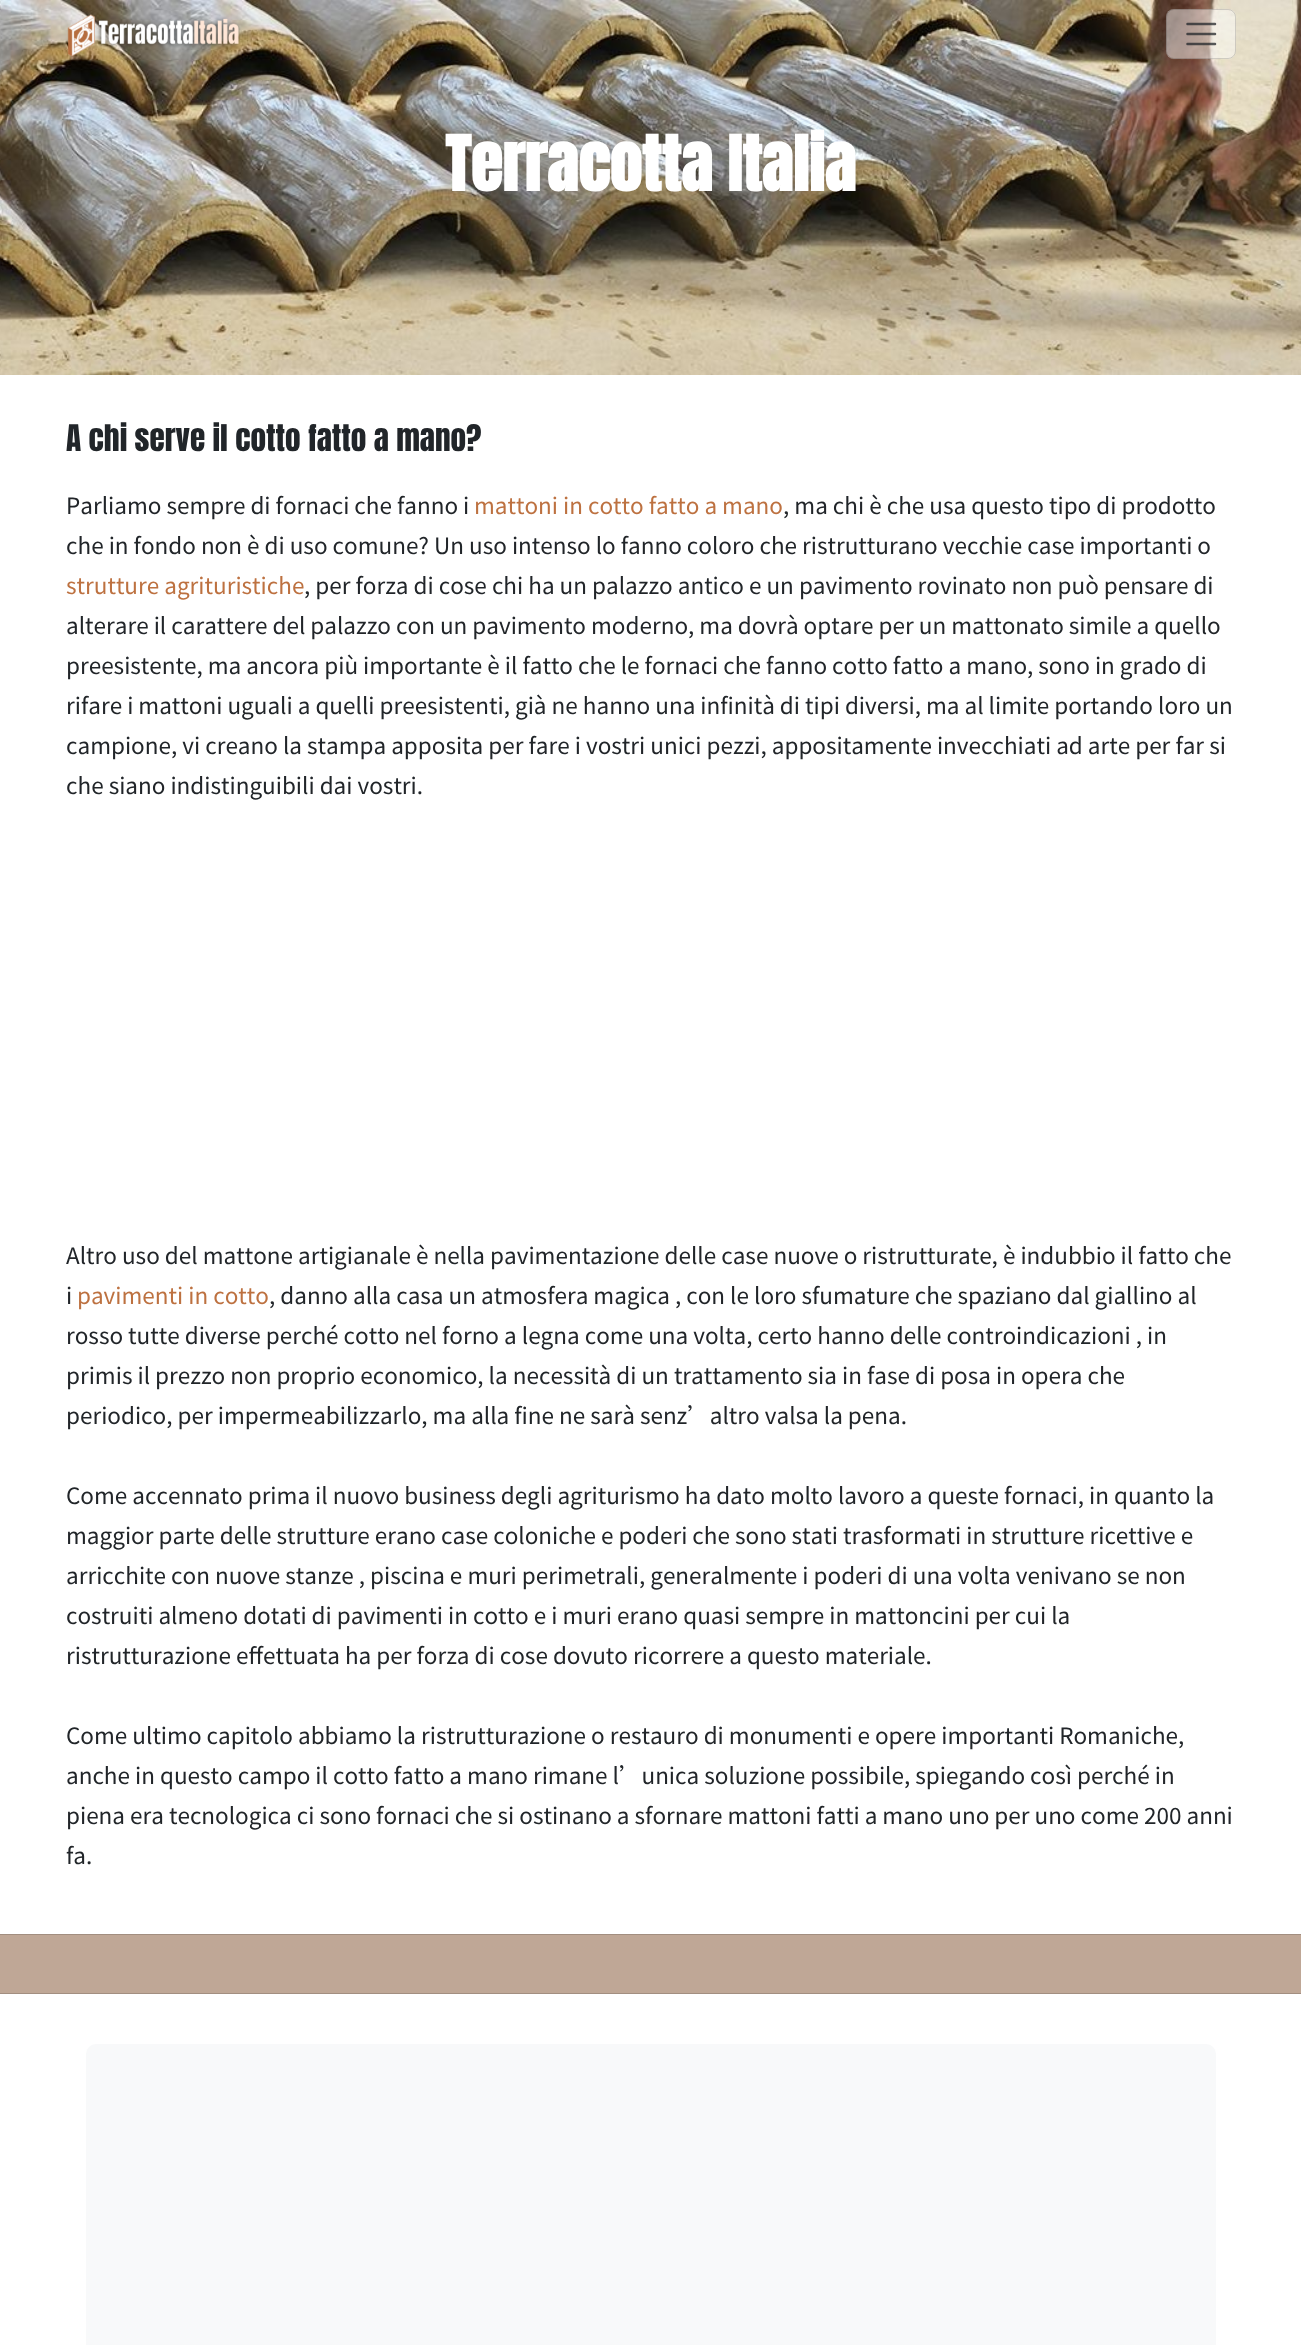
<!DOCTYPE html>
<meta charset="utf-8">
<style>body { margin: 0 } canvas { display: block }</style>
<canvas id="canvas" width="1301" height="2345"></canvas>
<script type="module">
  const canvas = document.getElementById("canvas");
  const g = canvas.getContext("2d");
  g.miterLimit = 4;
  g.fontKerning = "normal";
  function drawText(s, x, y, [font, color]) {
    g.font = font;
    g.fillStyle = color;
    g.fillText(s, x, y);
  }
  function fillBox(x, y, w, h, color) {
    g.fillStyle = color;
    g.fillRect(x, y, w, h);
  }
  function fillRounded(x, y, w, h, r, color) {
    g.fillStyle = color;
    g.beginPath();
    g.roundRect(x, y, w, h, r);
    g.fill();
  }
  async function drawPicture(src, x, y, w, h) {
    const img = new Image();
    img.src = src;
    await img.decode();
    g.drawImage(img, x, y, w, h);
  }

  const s1 = ["bold 64.5px Anton", "#FFFFFF"];
  const s2 = ["31.25px Anton", "#212529"];
  const s3 = ["22.5px Chocolate Classical Sans", "#212529"];
  const s4 = ["22.5px Chocolate Classical Sans", "#BD7140"];

  fillBox(0, 0, 1301, 2345, "#FFFFFF");
  await drawPicture("pic2.png", 0, 0, 1301, 375);
  await drawPicture("pic1.png", 67, 14, 173, 43);
  fillRounded(1166, 9, 70, 50, 8, "rgba(255, 255, 255, 0.47)");
  g.beginPath();
  g.roundRect(1166.5, 9.5, 69, 49, 7.5);
  g.strokeStyle = "rgba(0, 0, 0, 0.15)";
  g.stroke();
  g.beginPath();
  g.moveTo(1187.5, 24);
  g.lineTo(1215, 24);
  g.moveTo(1187.5, 34);
  g.lineTo(1215, 34);
  g.moveTo(1187.5, 44);
  g.lineTo(1215, 44);
  g.strokeStyle = "rgba(33, 37, 41, 0.75)";
  g.lineWidth = 2.5;
  g.lineCap = "round";
  g.stroke();
  drawText("Terracotta Italia", 445, 191, s1);
  drawText("A chi serve il cotto fatto a mano?", 66, 451, s2);
  drawText("Parliamo sempre di fornaci che fanno i", 66, 514, s3);
  drawText("mattoni in cotto fatto a mano", 474, 514, s4);
  drawText(", ma chi è che usa questo tipo di prodotto", 783, 514, s3);
  drawText("che in fondo non è di uso comune? Un uso intenso lo fanno coloro che ristrutturano vecchie case importanti o", 66, 554, s3);
  drawText("strutture agrituristiche", 66, 594, s4);
  drawText(", per forza di cose chi ha un palazzo antico e un pavimento rovinato non può pensare di", 304, 594, s3);
  drawText("alterare il carattere del palazzo con un pavimento moderno, ma dovrà optare per un mattonato simile a quello", 66, 634, s3);
  drawText("preesistente, ma ancora più importante è il fatto che le fornaci che fanno cotto fatto a mano, sono in grado di", 66, 674, s3);
  drawText("rifare i mattoni uguali a quelli preesistenti, già ne hanno una infinità di tipi diversi, ma al limite portando loro un", 66, 714, s3);
  drawText("campione, vi creano la stampa apposita per fare i vostri unici pezzi, appositamente invecchiati ad arte per far si", 66, 754, s3);
  drawText("che siano indistinguibili dai vostri.", 66, 794, s3);
  drawText("Altro uso del mattone artigianale è nella pavimentazione delle case nuove o ristrutturate, è indubbio il fatto che", 66, 1264, s3);
  drawText("i", 66, 1304, s3);
  drawText("pavimenti in cotto", 77, 1304, s4);
  drawText(", danno alla casa un atmosfera magica , con le loro sfumature che spaziano dal giallino al", 269, 1304, s3);
  drawText("rosso tutte diverse perché cotto nel forno a legna come una volta, certo hanno delle controindicazioni , in", 66, 1344, s3);
  drawText("primis il prezzo non proprio economico, la necessità di un trattamento sia in fase di posa in opera che", 66, 1384, s3);
  drawText("periodico, per impermeabilizzarlo, ma alla fine ne sarà senz’altro valsa la pena.", 66, 1424, s3);
  drawText("Come accennato prima il nuovo business degli agriturismo ha dato molto lavoro a queste fornaci, in quanto la", 66, 1504, s3);
  drawText("maggior parte delle strutture erano case coloniche e poderi che sono stati trasformati in strutture ricettive e", 66, 1544, s3);
  drawText("arricchite con nuove stanze , piscina e muri perimetrali, generalmente i poderi di una volta venivano se non", 66, 1584, s3);
  drawText("costruiti almeno dotati di pavimenti in cotto e i muri erano quasi sempre in mattoncini per cui la", 66, 1624, s3);
  drawText("ristrutturazione effettuata ha per forza di cose dovuto ricorrere a questo materiale.", 66, 1664, s3);
  drawText("Come ultimo capitolo abbiamo la ristrutturazione o restauro di monumenti e opere importanti Romaniche,", 66, 1744, s3);
  drawText("anche in questo campo il cotto fatto a mano rimane l’unica soluzione possibile, spiegando così perché in", 66, 1784, s3);
  drawText("piena era tecnologica ci sono fornaci che si ostinano a sfornare mattoni fatti a mano uno per uno come 200 anni", 66, 1824, s3);
  drawText("fa.", 66, 1864, s3);
  fillBox(0, 1935, 1301, 58, "#BFA796");
  fillBox(0, 1934, 1301, 1, "#A28E80");
  fillBox(0, 1993, 1301, 1, "#A28E80");
  fillRounded(86, 2044, 1130, 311, 10, "#F8F9FA");
</script>
